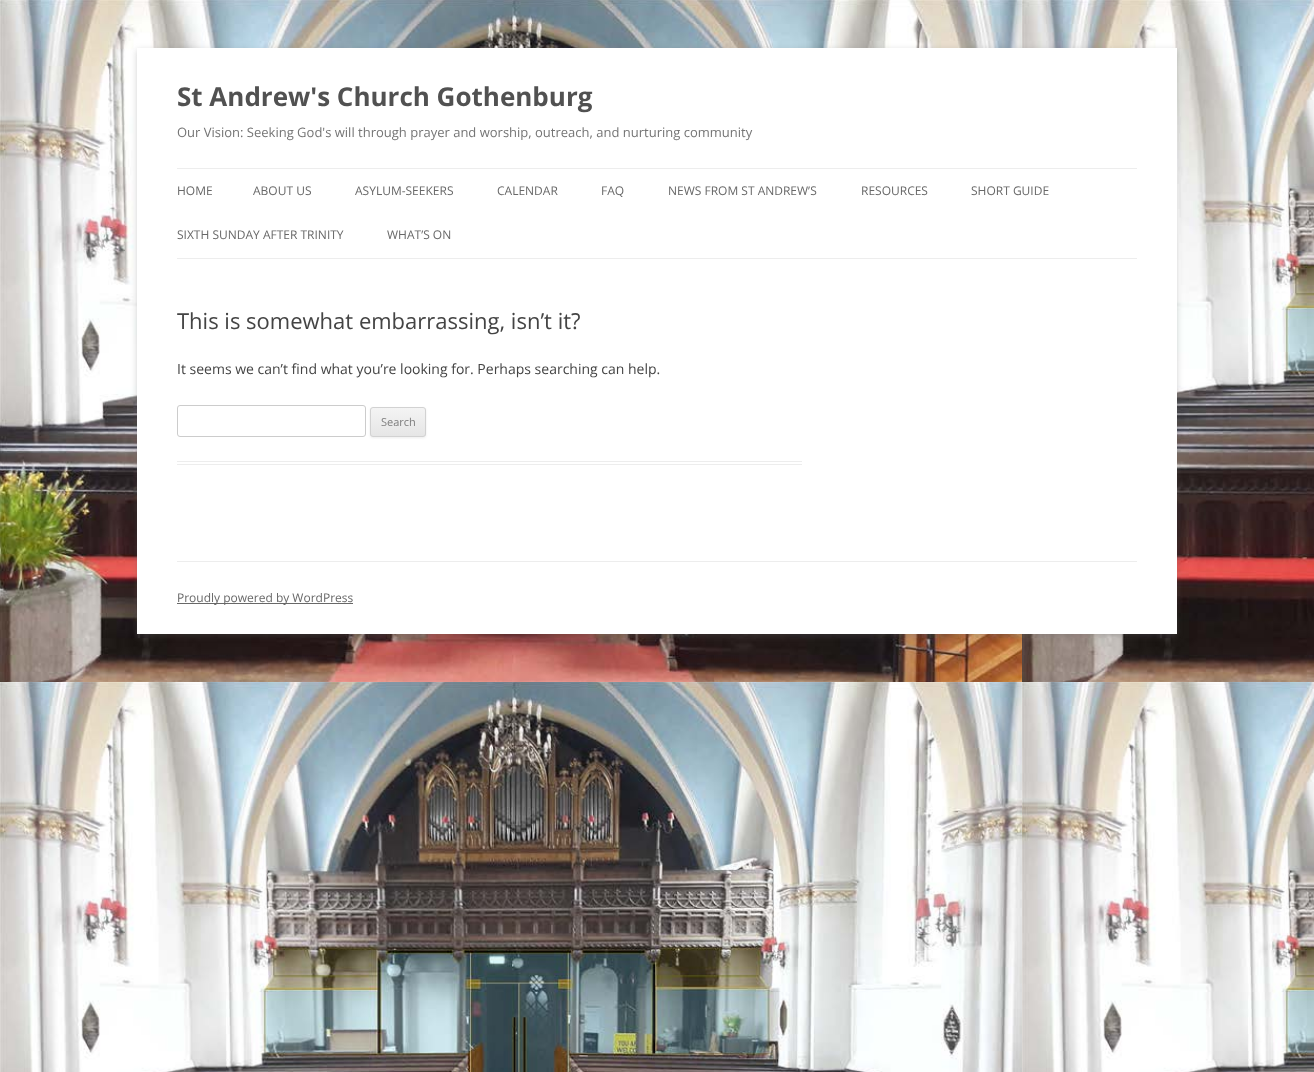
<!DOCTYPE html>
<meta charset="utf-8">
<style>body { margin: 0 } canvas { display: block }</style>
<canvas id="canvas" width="1314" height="1072"></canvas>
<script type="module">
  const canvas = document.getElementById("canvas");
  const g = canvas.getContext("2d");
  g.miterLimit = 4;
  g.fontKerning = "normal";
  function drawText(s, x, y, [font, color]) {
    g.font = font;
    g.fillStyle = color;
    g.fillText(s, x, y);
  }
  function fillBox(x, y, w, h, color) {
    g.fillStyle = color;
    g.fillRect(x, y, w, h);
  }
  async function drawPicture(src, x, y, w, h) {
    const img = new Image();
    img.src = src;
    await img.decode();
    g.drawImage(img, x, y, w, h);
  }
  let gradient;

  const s1 = ["bold 26px Open Sans", "#515151"];
  const s2 = ["13px Open Sans", "#757575"];
  const s3 = ["12px Open Sans", "#686868"];
  const s4 = ["22px Open Sans", "#444444"];
  const s5 = ["14px Open Sans", "#444444"];
  const s6 = ["11px Open Sans", "#7C7C7C"];

  fillBox(0, 0, 1314, 1072, "#FFFFFF");
  await drawPicture("pic1.png", 0, 0, 1314, 1072);
  g.fillStyle = "rgba(100, 100, 100, 0.3)";
  g.filter = "blur(3px)";
  g.beginPath();
  g.rect(137, 50, 1040, 586);
  g.fill();
  g.filter = "none";
  fillBox(137, 48, 1040, 586, "#FFFFFF");
  drawText("St Andrew's Church Gothenburg", 177, 106, s1);
  drawText("Our Vision: Seeking God's will through prayer and worship, outreach, and nurturing community", 177, 137, s2);
  fillBox(177, 168, 960, 1, "#EDEDED");
  fillBox(177, 258, 960, 1, "#EDEDED");
  drawText("HOME", 177, 195, s3);
  drawText("ABOUT US", 253, 195, s3);
  drawText("ASYLUM-SEEKERS", 355, 195, s3);
  drawText("CALENDAR", 497, 195, s3);
  drawText("FAQ", 601, 195, s3);
  drawText("NEWS FROM ST ANDREW’S", 668, 195, s3);
  drawText("RESOURCES", 861, 195, s3);
  drawText("SHORT GUIDE", 971, 195, s3);
  drawText("SIXTH SUNDAY AFTER TRINITY", 177, 239, s3);
  drawText("WHAT’S ON", 387, 239, s3);
  fillBox(177, 461, 625, 1, "#EDEDED");
  fillBox(177, 464, 625, 1, "#EDEDED");
  drawText("This is somewhat embarrassing, isn’t it?", 177, 329, s4);
  drawText("It seems we can’t find what you’re looking for. Perhaps searching can help.", 177, 374, s5);
  g.beginPath();
  g.roundRect(177.5, 405.5, 188, 31, 2.5);
  g.strokeStyle = "#CCCCCC";
  g.stroke();
  g.fillStyle = "rgba(64, 64, 64, 0.1)";
  g.filter = "blur(1px)";
  g.beginPath();
  g.roundRect(370, 408, 56, 30, 3);
  g.fill();
  g.filter = "none";
  g.save();
  g.beginPath();
  g.roundRect(370, 407, 56, 30, 3);
  g.clip();
  gradient = g.createLinearGradient(398, 408, 398, 436);
  gradient.addColorStop(0, "#F4F4F4");
  gradient.addColorStop(1, "#E6E6E6");
  g.fillStyle = gradient;
  g.fillRect(370, 408, 56, 28);
  g.restore();
  g.beginPath();
  g.roundRect(370.5, 407.5, 55, 29, 2.5);
  g.strokeStyle = "#D2D2D2";
  g.stroke();
  drawText("Search", 381, 426, s6);
  fillBox(177, 561, 960, 1, "#EDEDED");
  fillBox(177, 603, 176, 1, "#686868");
  drawText("Proudly powered by WordPress", 177, 602, s3);
</script>
